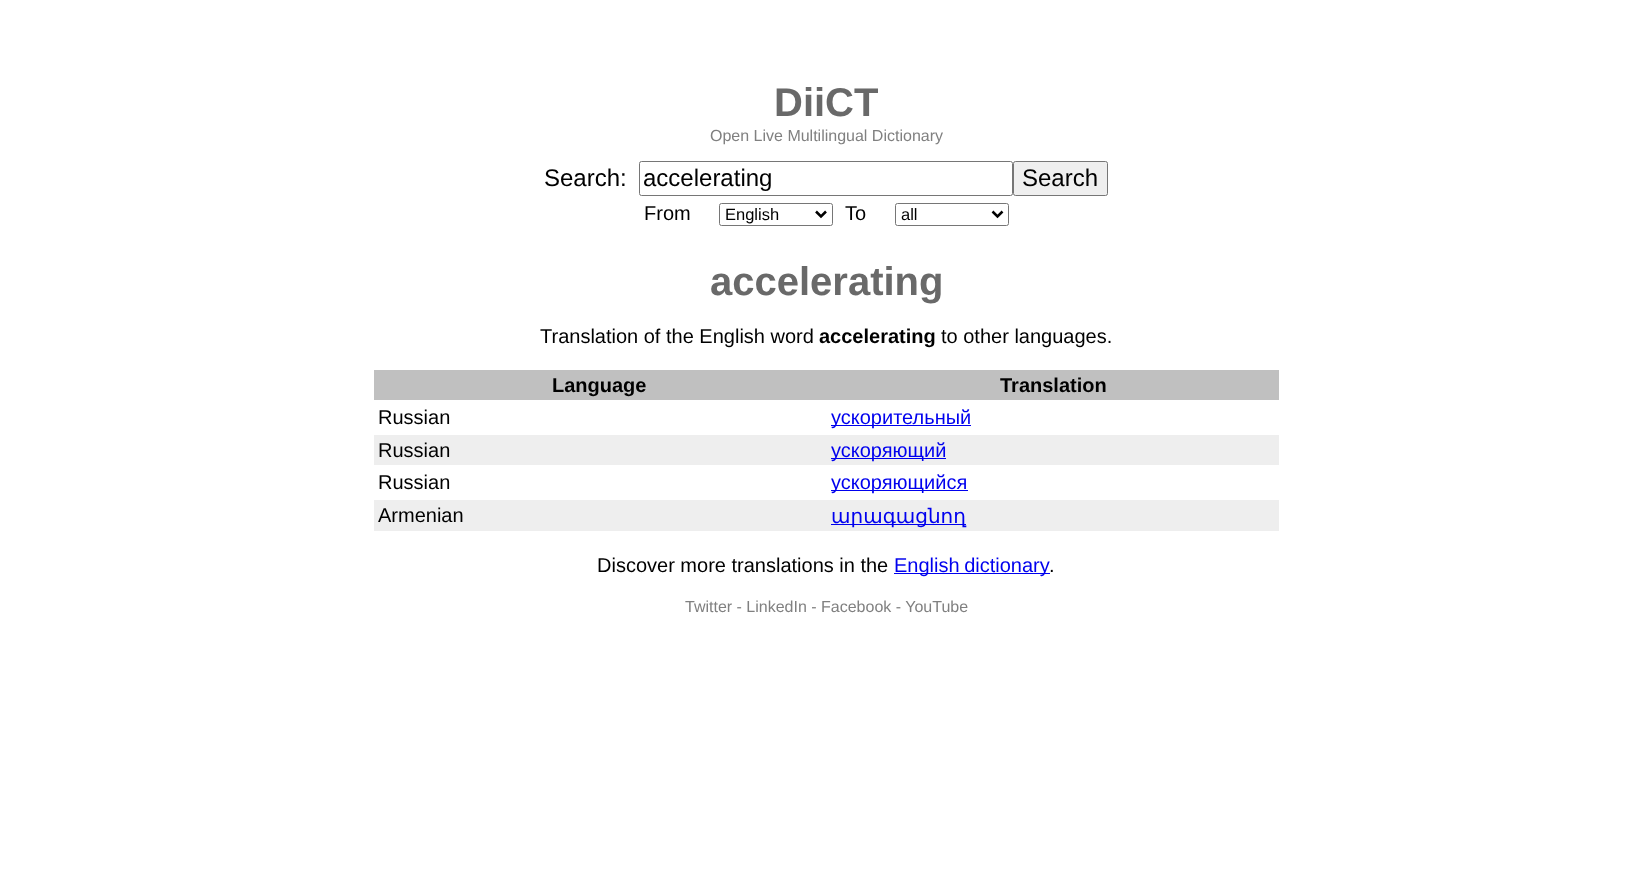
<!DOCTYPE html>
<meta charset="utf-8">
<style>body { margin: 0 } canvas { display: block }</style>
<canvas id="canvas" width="1652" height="890"></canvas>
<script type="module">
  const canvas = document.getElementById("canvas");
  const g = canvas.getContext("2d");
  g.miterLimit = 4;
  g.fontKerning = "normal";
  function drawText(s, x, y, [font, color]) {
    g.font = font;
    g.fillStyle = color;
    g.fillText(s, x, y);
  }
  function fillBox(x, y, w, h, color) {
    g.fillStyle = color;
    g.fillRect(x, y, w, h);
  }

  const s1 = ["bold 40px Liberation Sans", "#696969"];
  const s2 = ["16px Liberation Sans", "#808080"];
  const s3 = ["24px Liberation Sans", "#000000"];
  const s4 = ["20px Liberation Sans", "#000000"];
  const s5 = ["16.5px Liberation Sans", "#000000"];
  const s6 = ["bold 20px Liberation Sans", "#000000"];
  const s7 = ["20px Liberation Sans", "#0000EE"];
  const s8 = ["20px DejaVu Sans", "#0000EE"];

  fillBox(0, 0, 1652, 890, "#FFFFFF");
  drawText("DiiCT", 774, 116, s1);
  drawText("Open Live Multilingual Dictionary", 710, 141, s2);
  drawText("Search:", 544, 186, s3);
  g.beginPath();
  g.roundRect(639.5, 161.5, 373, 34, 2);
  g.strokeStyle = "#767676";
  g.stroke();
  drawText("accelerating", 643, 186, s3);
  g.fillStyle = "#EFEFEF";
  g.beginPath();
  g.roundRect(1013.5, 161.5, 94, 34, 2);
  g.fill();
  g.stroke();
  drawText("Search", 1022, 186, s3);
  drawText("From", 644, 220, s4);
  g.beginPath();
  g.roundRect(719.5, 203.5, 113, 22, 2);
  g.stroke();
  g.beginPath();
  g.moveTo(816, 211.5);
  g.lineTo(821, 216.5);
  g.lineTo(826, 211.5);
  g.strokeStyle = "#000000";
  g.lineWidth = 2.5;
  g.stroke();
  drawText("English", 725, 220, s5);
  drawText("To", 845, 220, s4);
  g.beginPath();
  g.roundRect(895.5, 203.5, 113, 22, 2);
  g.strokeStyle = "#767676";
  g.lineWidth = 1;
  g.stroke();
  g.beginPath();
  g.moveTo(992.5, 211.5);
  g.lineTo(997.5, 216.5);
  g.lineTo(1002.5, 211.5);
  g.strokeStyle = "#000000";
  g.lineWidth = 2.5;
  g.stroke();
  drawText("all", 901, 220, s5);
  drawText("accelerating", 710, 295, s1);
  drawText("Translation of the English word", 540, 343, s4);
  drawText("accelerating", 819, 343, s6);
  drawText("to other languages.", 941, 343, s4);
  fillBox(374, 370, 905, 30, "#C0C0C0");
  drawText("Language", 552, 392, s6);
  drawText("Translation", 1000, 392, s6);
  drawText("Russian", 378, 424, s4);
  fillBox(831, 425, 140, 1, "#0000EE");
  drawText("ускорительный", 831, 424, s7);
  fillBox(374, 435, 905, 30, "#EEEEEE");
  drawText("Russian", 378, 457, s4);
  fillBox(831, 458, 115, 1, "#0000EE");
  drawText("ускоряющий", 831, 457, s7);
  drawText("Russian", 378, 489, s4);
  fillBox(831, 490, 137, 1, "#0000EE");
  drawText("ускоряющийся", 831, 489, s7);
  fillBox(374, 500, 905, 31, "#EEEEEE");
  drawText("Armenian", 378, 522, s4);
  fillBox(831, 524, 135, 1, "#0000EE");
  drawText("արագացնող", 831, 523, s8);
  drawText("Discover more translations in the", 597, 572, s4);
  fillBox(894, 573, 156, 1, "#0000EE");
  g.wordSpacing = "-1px";
  drawText("English dictionary", 894, 572, s7);
  g.wordSpacing = "0px";
  drawText(".", 1049, 572, s4);
  drawText("Twitter - LinkedIn - Facebook - YouTube", 685, 612, s2);
</script>
